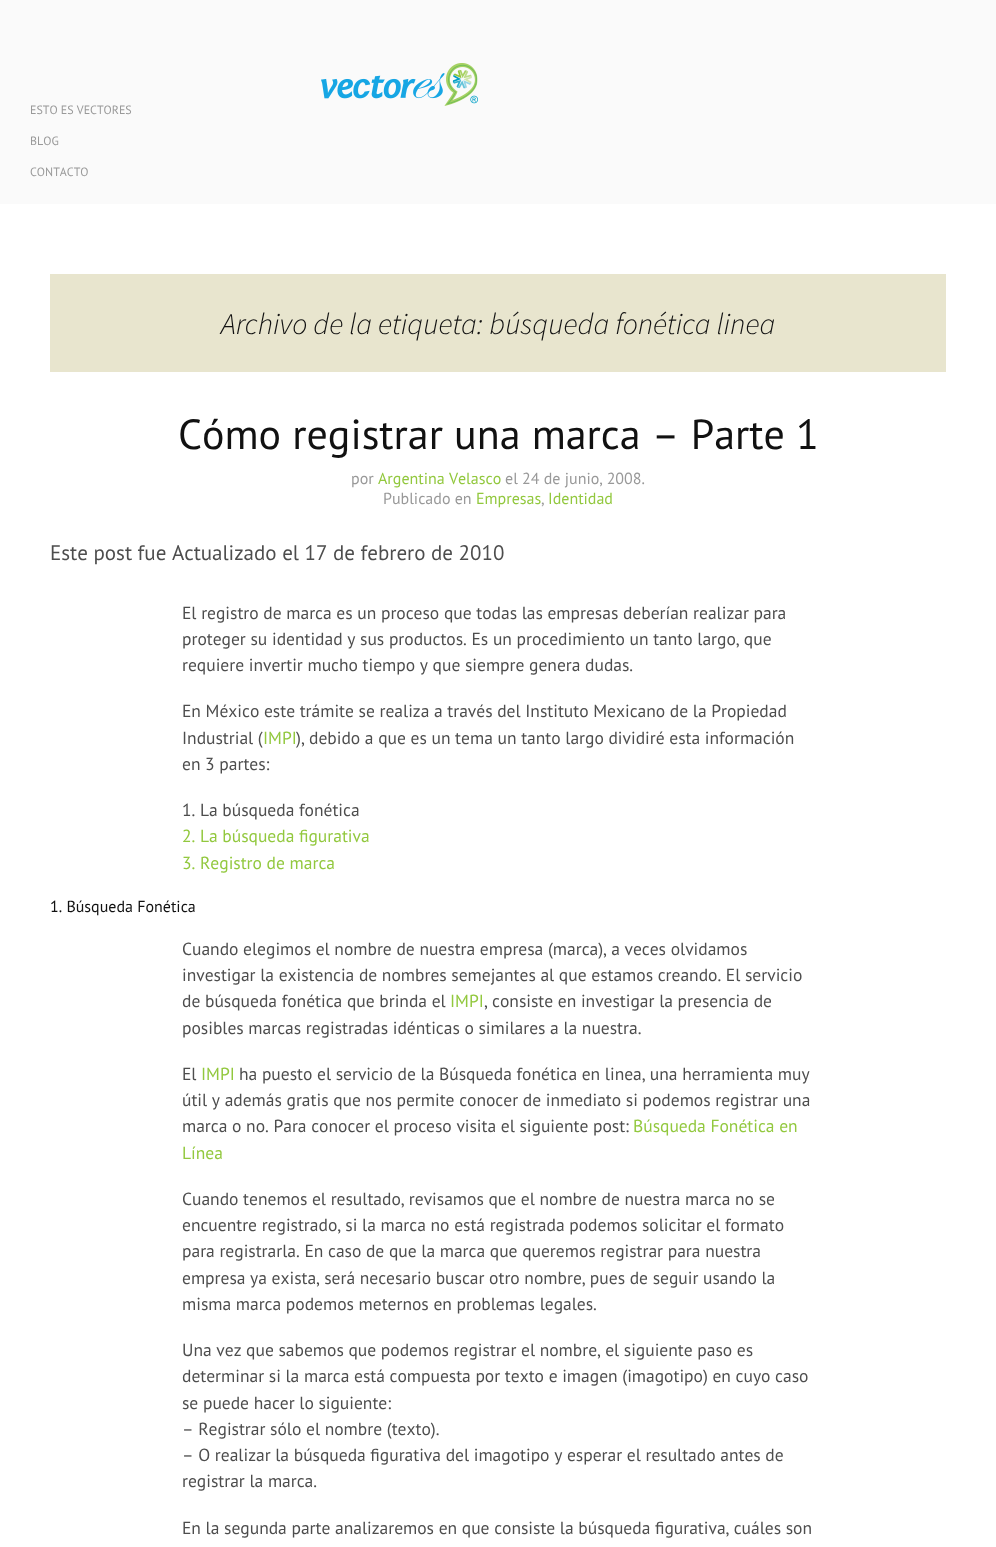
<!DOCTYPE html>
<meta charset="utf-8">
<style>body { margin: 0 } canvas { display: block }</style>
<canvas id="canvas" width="996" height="1547"></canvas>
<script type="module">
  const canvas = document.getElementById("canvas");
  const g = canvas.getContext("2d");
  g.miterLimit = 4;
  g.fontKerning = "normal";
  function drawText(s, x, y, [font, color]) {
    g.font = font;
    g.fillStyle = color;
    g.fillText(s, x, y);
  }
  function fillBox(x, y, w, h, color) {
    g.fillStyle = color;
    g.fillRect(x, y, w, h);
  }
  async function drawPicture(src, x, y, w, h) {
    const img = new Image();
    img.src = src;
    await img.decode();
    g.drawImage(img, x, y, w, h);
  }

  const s1 = ["12px PT Sans", "#999999"];
  const s2 = ["italic 300 30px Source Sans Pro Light", "#111111"];
  const s3 = ["42px PT Sans", "#111111"];
  const s4 = ["16px PT Sans", "#999999"];
  const s5 = ["16px PT Sans", "#92C83E"];
  const s6 = ["21px PT Sans", "#4D4D4D"];
  const s7 = ["17.5px PT Sans", "#4D4D4D"];
  const s8 = ["17.5px PT Sans", "#92C83E"];
  const s9 = ["16px PT Sans", "#111111"];

  fillBox(0, 0, 996, 1547, "#FFFFFF");
  fillBox(0, 0, 996, 204, "#FAFAFA");
  await drawPicture("pic1.png", 321, 63, 157, 43);
  drawText("ESTO ES VECTORES", 30, 114, s1);
  drawText("BLOG", 30, 145, s1);
  drawText("CONTACTO", 30, 176, s1);
  fillBox(50, 274, 896, 98, "#E8E5CE");
  drawText("Archivo de la etiqueta: búsqueda fonética linea", 221, 334, s2);
  drawText("Cómo registrar una marca – Parte 1", 178, 449, s3);
  drawText("por", 351, 484, s4);
  drawText("Argentina Velasco", 378, 484, s5);
  drawText("el 24 de junio, 2008.", 505, 484, s4);
  drawText("Publicado en", 383, 504, s4);
  drawText("Empresas", 476, 504, s5);
  drawText(",", 541, 504, s4);
  drawText("Identidad", 548, 504, s5);
  drawText("Este post fue Actualizado el 17 de febrero de 2010", 50, 560, s6);
  drawText("El registro de marca es un proceso que todas las empresas deberían realizar para", 182, 619, s7);
  drawText("proteger su identidad y sus productos. Es un procedimiento un tanto largo, que", 182, 645, s7);
  drawText("requiere invertir mucho tiempo y que siempre genera dudas.", 182, 671, s7);
  drawText("En México este trámite se realiza a través del Instituto Mexicano de la Propiedad", 182, 717, s7);
  drawText("Industrial (", 182, 744, s7);
  drawText("IMPI", 263, 744, s8);
  drawText("), debido a que es un tema un tanto largo dividiré esta información", 296, 744, s7);
  drawText("en 3 partes:", 182, 770, s7);
  drawText("1. La búsqueda fonética", 182, 816, s7);
  drawText("2. La búsqueda figurativa", 182, 842, s8);
  drawText("3. Registro de marca", 182, 869, s8);
  drawText("1. Búsqueda Fonética", 50, 912, s9);
  drawText("Cuando elegimos el nombre de nuestra empresa (marca), a veces olvidamos", 182, 955, s7);
  drawText("investigar la existencia de nombres semejantes al que estamos creando. El servicio", 182, 981, s7);
  drawText("de búsqueda fonética que brinda el", 182, 1007, s7);
  drawText("IMPI", 450, 1007, s8);
  drawText(", consiste en investigar la presencia de", 484, 1007, s7);
  drawText("posibles marcas registradas idénticas o similares a la nuestra.", 182, 1034, s7);
  drawText("El", 182, 1080, s7);
  drawText("IMPI", 201, 1080, s8);
  drawText("ha puesto el servicio de la Búsqueda fonética en linea, una herramienta muy", 239, 1080, s7);
  drawText("útil y además gratis que nos permite conocer de inmediato si podemos registrar una", 182, 1106, s7);
  drawText("marca o no. Para conocer el proceso visita el siguiente post:", 182, 1132, s7);
  drawText("Búsqueda Fonética en", 633, 1132, s8);
  drawText("Línea", 182, 1159, s8);
  drawText("Cuando tenemos el resultado, revisamos que el nombre de nuestra marca no se", 182, 1205, s7);
  drawText("encuentre registrado, si la marca no está registrada podemos solicitar el formato", 182, 1231, s7);
  drawText("para registrarla. En caso de que la marca que queremos registrar para nuestra", 182, 1257, s7);
  drawText("empresa ya exista, será necesario buscar otro nombre, pues de seguir usando la", 182, 1284, s7);
  drawText("misma marca podemos meternos en problemas legales.", 182, 1310, s7);
  drawText("Una vez que sabemos que podemos registrar el nombre, el siguiente paso es", 182, 1356, s7);
  drawText("determinar si la marca está compuesta por texto e imagen (imagotipo) en cuyo caso", 182, 1382, s7);
  drawText("se puede hacer lo siguiente:", 182, 1409, s7);
  drawText("– Registrar sólo el nombre (texto).", 182, 1435, s7);
  drawText("– O realizar la búsqueda figurativa del imagotipo y esperar el resultado antes de", 182, 1461, s7);
  drawText("registrar la marca.", 182, 1487, s7);
  drawText("En la segunda parte analizaremos en que consiste la búsqueda figurativa, cuáles son", 182, 1534, s7);
</script>
